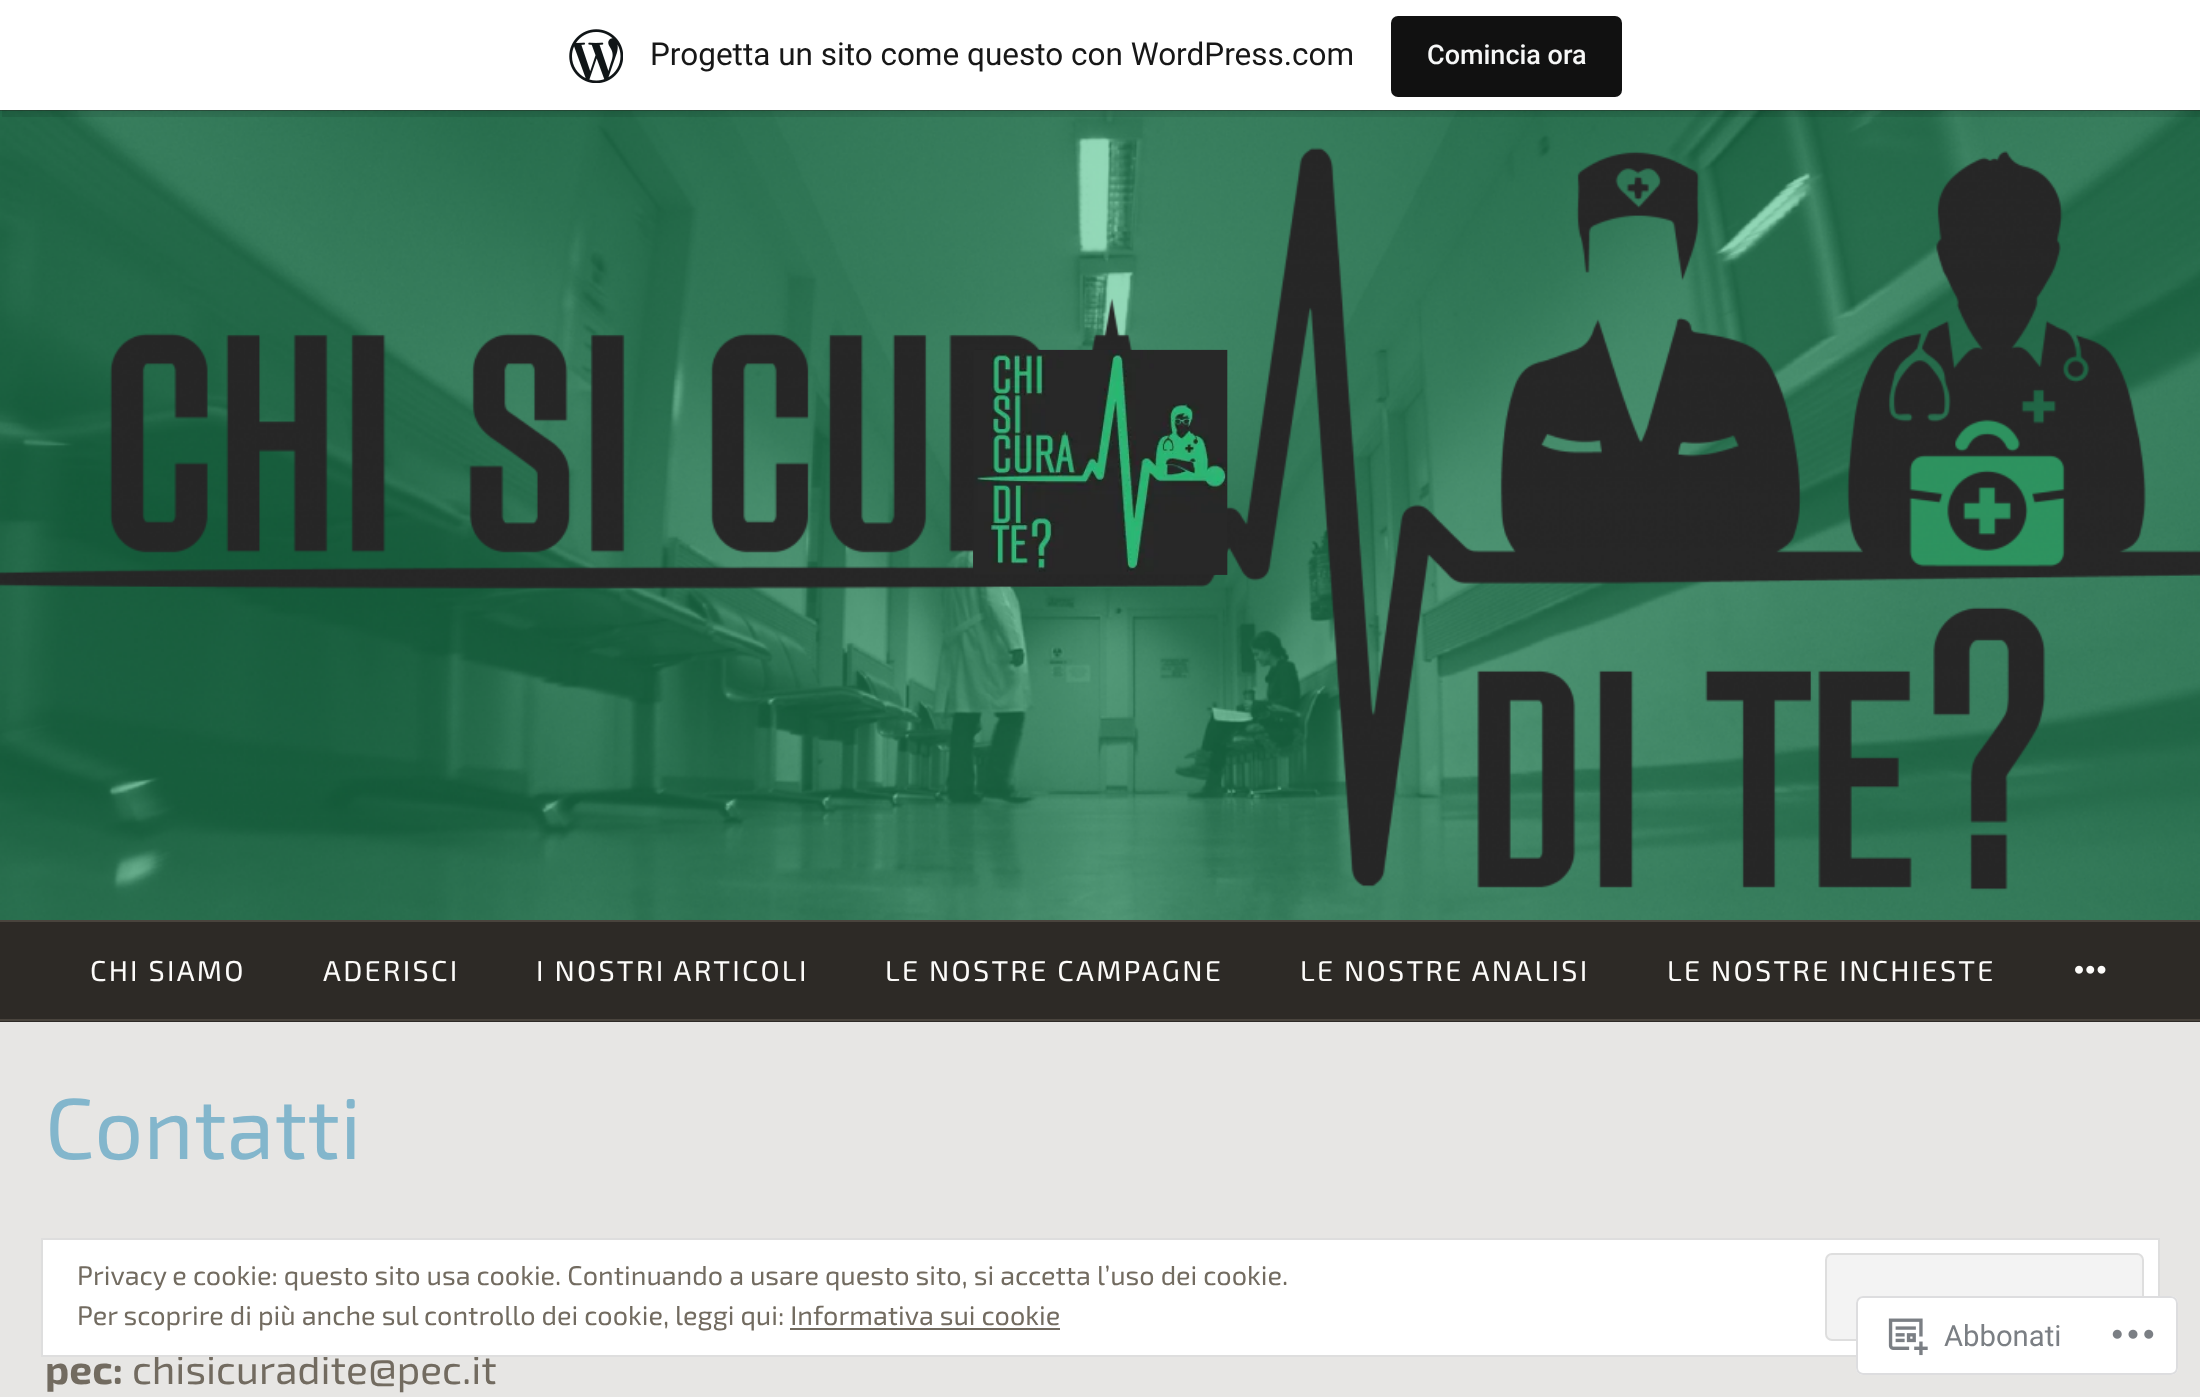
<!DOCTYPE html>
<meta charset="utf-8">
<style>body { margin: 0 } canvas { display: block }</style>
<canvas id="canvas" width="2200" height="1397"></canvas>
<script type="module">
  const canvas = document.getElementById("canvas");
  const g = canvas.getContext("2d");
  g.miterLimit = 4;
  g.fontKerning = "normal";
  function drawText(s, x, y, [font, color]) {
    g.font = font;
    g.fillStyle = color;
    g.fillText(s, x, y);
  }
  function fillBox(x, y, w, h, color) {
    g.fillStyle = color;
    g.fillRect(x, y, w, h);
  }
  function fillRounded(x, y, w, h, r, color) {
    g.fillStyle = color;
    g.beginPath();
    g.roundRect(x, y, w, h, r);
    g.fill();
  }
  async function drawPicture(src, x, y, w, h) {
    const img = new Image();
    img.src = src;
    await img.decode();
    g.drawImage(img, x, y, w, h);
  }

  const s1 = ["31.5px Roboto", "#171717"];
  const s2 = ["500 27px Roboto", "#F6F7F7"];
  const s3 = ["28.75px 'Exo 2'", "#FCFBF9"];
  const s4 = ["86.5px 'Exo 2'", "#83B6CC"];
  const s5 = ["bold 40.5px 'Exo 2'", "#726B60"];
  const s6 = ["40.5px 'Exo 2'", "#726B60"];
  const s7 = ["27px 'Exo 2'", "#726B60"];
  const s8 = ["29.25px Roboto", "#7B7F84"];

  fillBox(0, 0, 2200, 1397, "#E7E6E4");
  fillBox(0, 110, 2200, 1, "#2D2A26");
  await drawPicture("pic2.png", 0, 110, 2200, 810);
  g.fillStyle = "rgba(0, 0, 0, 0.05)";
  g.filter = "blur(2px)";
  g.beginPath();
  g.rect(0, 2, 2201, 111);
  g.fill();
  g.filter = "none";
  g.fillStyle = "rgba(0, 0, 0, 0.08)";
  g.beginPath();
  g.moveTo(2, 110);
  g.lineTo(2, 117);
  g.lineTo(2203, 117);
  g.lineTo(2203, 7);
  g.lineTo(2200, 7);
  g.lineTo(2200, 110);
  g.closePath();
  g.fill();
  fillBox(0, 0, 2200, 110, "#FFFFFF");
  await drawPicture("pic1.png", 569, 29, 54, 54);
  drawText("Progetta un sito come questo con WordPress.com", 650, 65, s1);
  fillRounded(1391, 16, 231, 81, 7, "#111111");
  drawText("Comincia ora", 1427, 64, s2);
  await drawPicture("pic3.png", 973, 349, 255, 226);
  fillBox(0, 922, 2200, 100, "#2D2A26");
  fillBox(0, 920, 2200, 2, "#49443D");
  fillBox(0, 1019, 2200, 2, "#49443D");
  g.letterSpacing = "2.25px";
  drawText("CHI SIAMO", 90, 981, s3);
  drawText("ADERISCI", 323, 981, s3);
  drawText("I NOSTRI ARTICOLI", 536, 981, s3);
  drawText("LE NOSTRE CAMPAGNE", 885, 981, s3);
  drawText("LE NOSTRE ANALISI", 1300, 981, s3);
  drawText("LE NOSTRE INCHIESTE", 1667, 981, s3);
  await drawPicture("pic4.png", 2075, 965, 31, 9);
  g.letterSpacing = "0px";
  drawText("Contatti", 45, 1159, s4);
  drawText("pec:", 45, 1384, s5);
  drawText("chisicuradite@pec.it", 132, 1384, s6);
  g.fillStyle = "#FFFFFF";
  g.beginPath();
  g.rect(42, 1239, 2117, 117);
  g.fill();
  g.strokeStyle = "#DEDEDE";
  g.lineWidth = 2;
  g.stroke();
  drawText("Privacy e cookie: questo sito usa cookie. Continuando a usare questo sito, si accetta l’uso dei cookie.", 77, 1285, s7);
  g.fillStyle = "#F3F3F3";
  g.beginPath();
  g.roundRect(1826, 1254, 317, 86, 6);
  g.fill();
  g.stroke();
  drawText("Per scoprire di più anche sul controllo dei cookie, leggi qui: Informativa sui cookie", 77, 1325, s7);
  fillBox(790, 1328, 270, 2, "#726B60");
  fillRounded(1856, 1296, 322, 79, 7, "rgba(255, 255, 255, 0.98)");
  g.beginPath();
  g.roundRect(1857, 1297, 320, 77, 6);
  g.strokeStyle = "rgba(220, 220, 222, 0.98)";
  g.stroke();
  await drawPicture("pic5.png", 1888, 1318, 40, 38);
  drawText("Abbonati", 1944, 1346, s8);
  await drawPicture("pic6.png", 2112, 1329, 42, 10);
</script>
